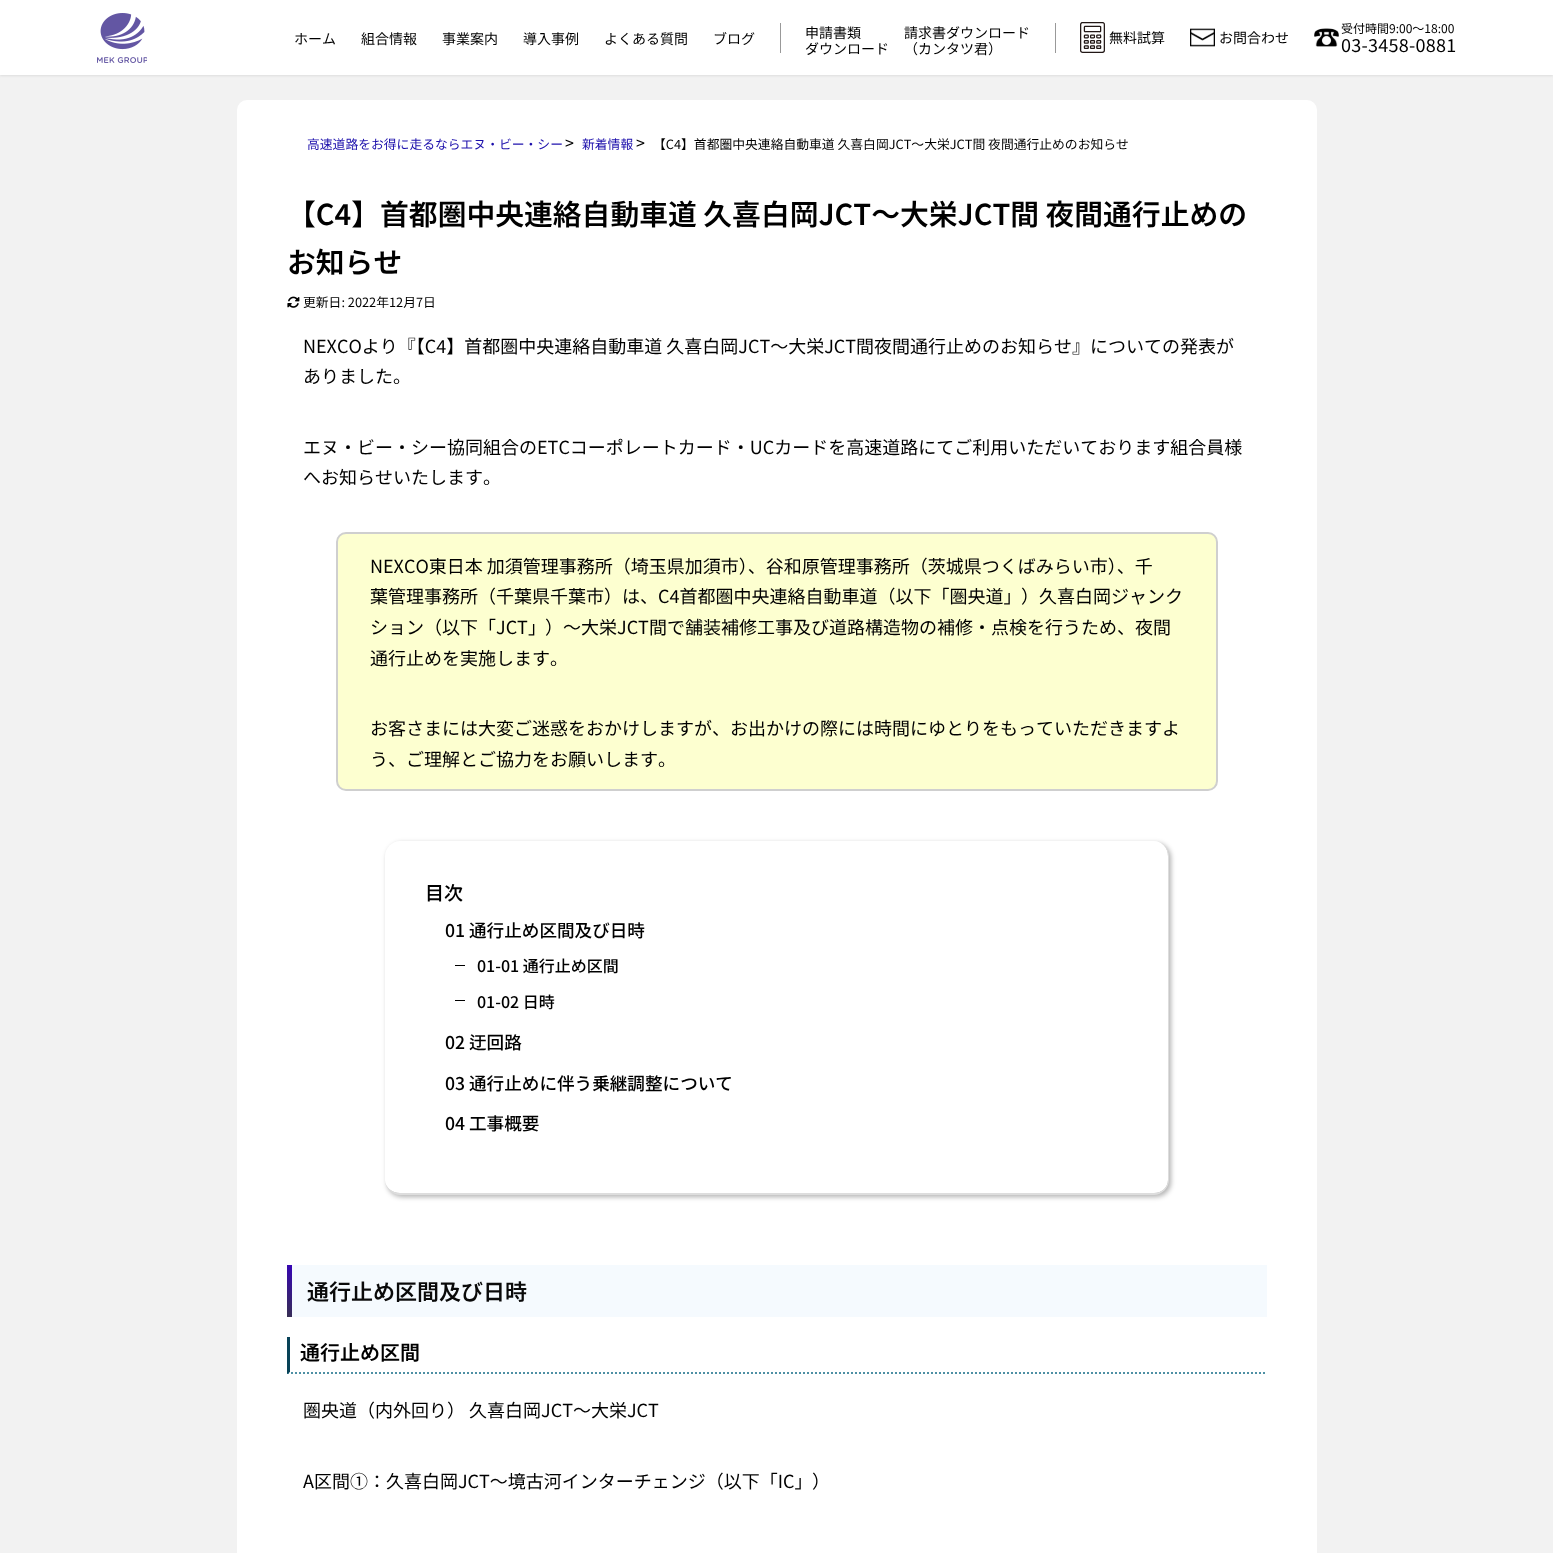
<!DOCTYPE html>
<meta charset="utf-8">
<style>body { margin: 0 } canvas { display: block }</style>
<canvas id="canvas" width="1553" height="1553"></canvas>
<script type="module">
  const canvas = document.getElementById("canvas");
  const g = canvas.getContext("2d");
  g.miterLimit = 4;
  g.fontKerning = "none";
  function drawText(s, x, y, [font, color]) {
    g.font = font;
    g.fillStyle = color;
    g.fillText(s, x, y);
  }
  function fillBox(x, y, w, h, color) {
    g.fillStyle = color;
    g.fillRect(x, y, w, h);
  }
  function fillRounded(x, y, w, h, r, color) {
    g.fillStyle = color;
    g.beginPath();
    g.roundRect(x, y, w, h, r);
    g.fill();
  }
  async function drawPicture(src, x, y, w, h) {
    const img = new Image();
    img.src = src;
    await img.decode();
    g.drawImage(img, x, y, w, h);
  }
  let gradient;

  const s1 = ["14px Noto Sans JP", "#000000"];
  const s2 = ["12px Noto Sans JP", "#000000"];
  const s3 = ["18px Noto Sans JP", "#000000"];
  const s4 = ["12.8px Noto Sans JP", "#1A0DAB"];
  const s5 = ["16px Noto Sans JP", "#000000"];
  const s6 = ["12.8px Noto Sans JP", "#000000"];
  const s7 = ["600 28.8px Noto Sans JP", "#000000"];
  const s8 = ["500 19px Noto Sans JP", "#000000"];
  const s9 = ["500 17.6px 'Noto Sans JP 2'", "#000000"];
  const s10 = ["500 16px 'Noto Sans JP 2'", "#000000"];
  const s11 = ["600 22px Noto Sans JP", "#0A0A0A"];
  const s12 = ["600 20px Noto Sans JP", "#000000"];

  fillBox(0, 0, 1553, 1553, "#F2F2F2");
  g.fillStyle = "#DDDDDD";
  g.filter = "blur(1px)";
  g.beginPath();
  g.rect(0, 1, 1553, 75);
  g.fill();
  g.filter = "none";
  fillBox(0, 0, 1553, 75, "#FFFFFF");
  await drawPicture("pic1.png", 97, 13, 50, 50);
  drawText("ホーム", 294, 44, s1);
  drawText("組合情報", 361, 44, s1);
  drawText("事業案内", 442, 44, s1);
  drawText("導入事例", 523, 44, s1);
  drawText("よくある質問", 604, 44, s1);
  drawText("ブログ", 713, 44, s1);
  fillBox(780, 23, 1, 30, "#999999");
  drawText("申請書類", 805, 38, s1);
  drawText("ダウンロード", 805, 54, s1);
  drawText("請求書ダウンロード", 904, 38, s1);
  drawText("（カンタツ君）", 904, 54, s1);
  fillBox(1055, 23, 1, 30, "#999999");
  await drawPicture("pic2.png", 1080, 22, 25, 31);
  drawText("無料試算", 1109, 43, s1);
  await drawPicture("pic3.png", 1190, 28, 25, 19);
  drawText("お問合わせ", 1219, 43, s1);
  await drawPicture("pic4.png", 1314, 28, 25, 19);
  drawText("受付時間9:00～18:00", 1341, 33, s2);
  g.letterSpacing = "0.25px";
  drawText("03-3458-0881", 1341, 52, s3);
  fillRounded(237, 100, 1080, 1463, 10, "#FFFFFF");
  g.letterSpacing = "0px";
  drawText("高速道路をお得に走るならエヌ・ビー・シー", 307, 149, s4);
  g.letterSpacing = "8px";
  drawText(">", 565, 149, s5);
  g.letterSpacing = "0px";
  drawText("新着情報", 582, 149, s4);
  g.letterSpacing = "8px";
  drawText(">", 636, 149, s5);
  g.letterSpacing = "0px";
  drawText("【C4】首都圏中央連絡自動車道 久喜白岡JCT～大栄JCT間 夜間通行止めのお知らせ", 653, 149, s6);
  drawText("【C4】首都圏中央連絡自動車道 久喜白岡JCT～大栄JCT間 夜間通行止めの", 287, 225, s7);
  drawText("お知らせ", 287, 273, s7);
  await drawPicture("pic5.png", 287, 296, 13, 12);
  drawText("更新日: 2022年12月7日", 303, 307, s6);
  drawText("NEXCOより『【C4】首都圏中央連絡自動車道 久喜白岡JCT～大栄JCT間夜間通行止めのお知らせ』についての発表が", 303, 353, s3);
  drawText("ありました。", 303, 383, s3);
  drawText("エヌ・ビー・シー協同組合のETCコーポレートカード・UCカードを高速道路にてご利用いただいております組合員様", 303, 454, s3);
  drawText("へお知らせいたします。", 303, 484, s3);
  g.fillStyle = "#FDFFD0";
  g.beginPath();
  g.roundRect(337, 533, 880, 257, 9);
  g.fill();
  g.strokeStyle = "#CFCFCF";
  g.lineWidth = 2;
  g.stroke();
  drawText("NEXCO東日本 加須管理事務所（埼玉県加須市）、谷和原管理事務所（茨城県つくばみらい市）、千", 370, 573, s3);
  drawText("葉管理事務所（千葉県千葉市）は、C4首都圏中央連絡自動車道（以下「圏央道」", 370, 603, s3);
  drawText("）久喜白岡ジャンク", 1021, 603, s3);
  drawText("ション（以下「JCT」", 370, 634, s3);
  drawText("）～大栄JCT間で舗装補修工事及び道路構造物の補修・点検を行うため、夜間", 545, 634, s3);
  drawText("通行止めを実施します。", 370, 665, s3);
  drawText("お客さまには大変ご迷惑をおかけしますが、お出かけの際には時間にゆとりをもっていただきますよ", 370, 735, s3);
  drawText("う、ご理解とご協力をお願いします。", 370, 766, s3);
  g.fillStyle = "rgba(0, 0, 0, 0.3)";
  g.filter = "blur(2.5px)";
  g.beginPath();
  g.roundRect(387, 843, 784, 354, 15);
  g.fill();
  g.filter = "none";
  g.fillStyle = "#FFFFFF";
  g.beginPath();
  g.moveTo(400, 841);
  g.lineTo(1154, 841);
  g.bezierCurveTo(1162, 841, 1168, 848, 1168, 856);
  g.lineTo(1168, 1180);
  g.bezierCurveTo(1168, 1187, 1162, 1193, 1154, 1193);
  g.lineTo(400, 1193);
  g.bezierCurveTo(392, 1193, 385, 1187, 385, 1180);
  g.lineTo(385, 856);
  g.bezierCurveTo(385, 848, 392, 841, 400, 841);
  g.closePath();
  g.fill();
  g.fillStyle = "#DDDDDD";
  g.beginPath();
  g.moveTo(400, 841);
  g.lineTo(1154, 841);
  g.bezierCurveTo(1162, 841, 1169, 848, 1169, 856);
  g.lineTo(1169, 1180);
  g.bezierCurveTo(1169, 1188, 1162, 1195, 1154, 1195);
  g.lineTo(400, 1195);
  g.bezierCurveTo(392, 1195, 385, 1188, 385, 1180);
  g.lineTo(385, 856);
  g.bezierCurveTo(385, 848, 392, 841, 400, 841);
  g.closePath();
  g.moveTo(400, 841);
  g.lineTo(1154, 841);
  g.bezierCurveTo(1162, 841, 1168, 848, 1168, 856);
  g.lineTo(1168, 1180);
  g.bezierCurveTo(1168, 1187, 1162, 1193, 1154, 1193);
  g.lineTo(400, 1193);
  g.bezierCurveTo(392, 1193, 385, 1187, 385, 1180);
  g.lineTo(385, 856);
  g.bezierCurveTo(385, 848, 392, 841, 400, 841);
  g.closePath();
  g.fill("evenodd");
  drawText("目次", 425, 900, s8);
  drawText("01 通行止め区間及び日時", 445, 937, s9);
  fillBox(455, 965, 10, 1, "#000000");
  drawText("01-01 通行止め区間", 477, 972, s10);
  fillBox(455, 1000, 10, 1, "#000000");
  drawText("01-02 日時", 477, 1008, s10);
  drawText("02 迂回路", 445, 1049, s9);
  drawText("03 通行止めに伴う乗継調整について", 445, 1090, s9);
  drawText("04 工事概要", 445, 1130, s9);
  fillBox(292, 1265, 975, 52, "#F5FAFE");
  gradient = g.createLinearGradient(275, 1305, 304, 1277);
  gradient.addColorStop(0, "#373050");
  gradient.addColorStop(1, "#3704B8");
  g.fillStyle = gradient;
  g.fillRect(287, 1265, 5, 52);
  drawText("通行止め区間及び日時", 307, 1300, s11);
  g.beginPath();
  g.moveTo(287, 1373);
  g.lineTo(1267, 1373);
  g.strokeStyle = "#4E90A4";
  g.setLineDash([2, 2]);
  g.stroke();
  g.fillStyle = "#084257";
  g.beginPath();
  g.moveTo(287, 1374);
  g.lineTo(287, 1337);
  g.lineTo(290, 1337);
  g.lineTo(290, 1372);
  g.closePath();
  g.fill();
  drawText("通行止め区間", 300, 1360, s12);
  drawText("圏央道（内外回り） 久喜白岡JCT～大栄JCT", 303, 1417, s3);
  drawText("A区間①：久喜白岡JCT～境古河インターチェンジ（以下「IC」", 303, 1488, s3);
  drawText("）", 812, 1488, s3);
</script>
